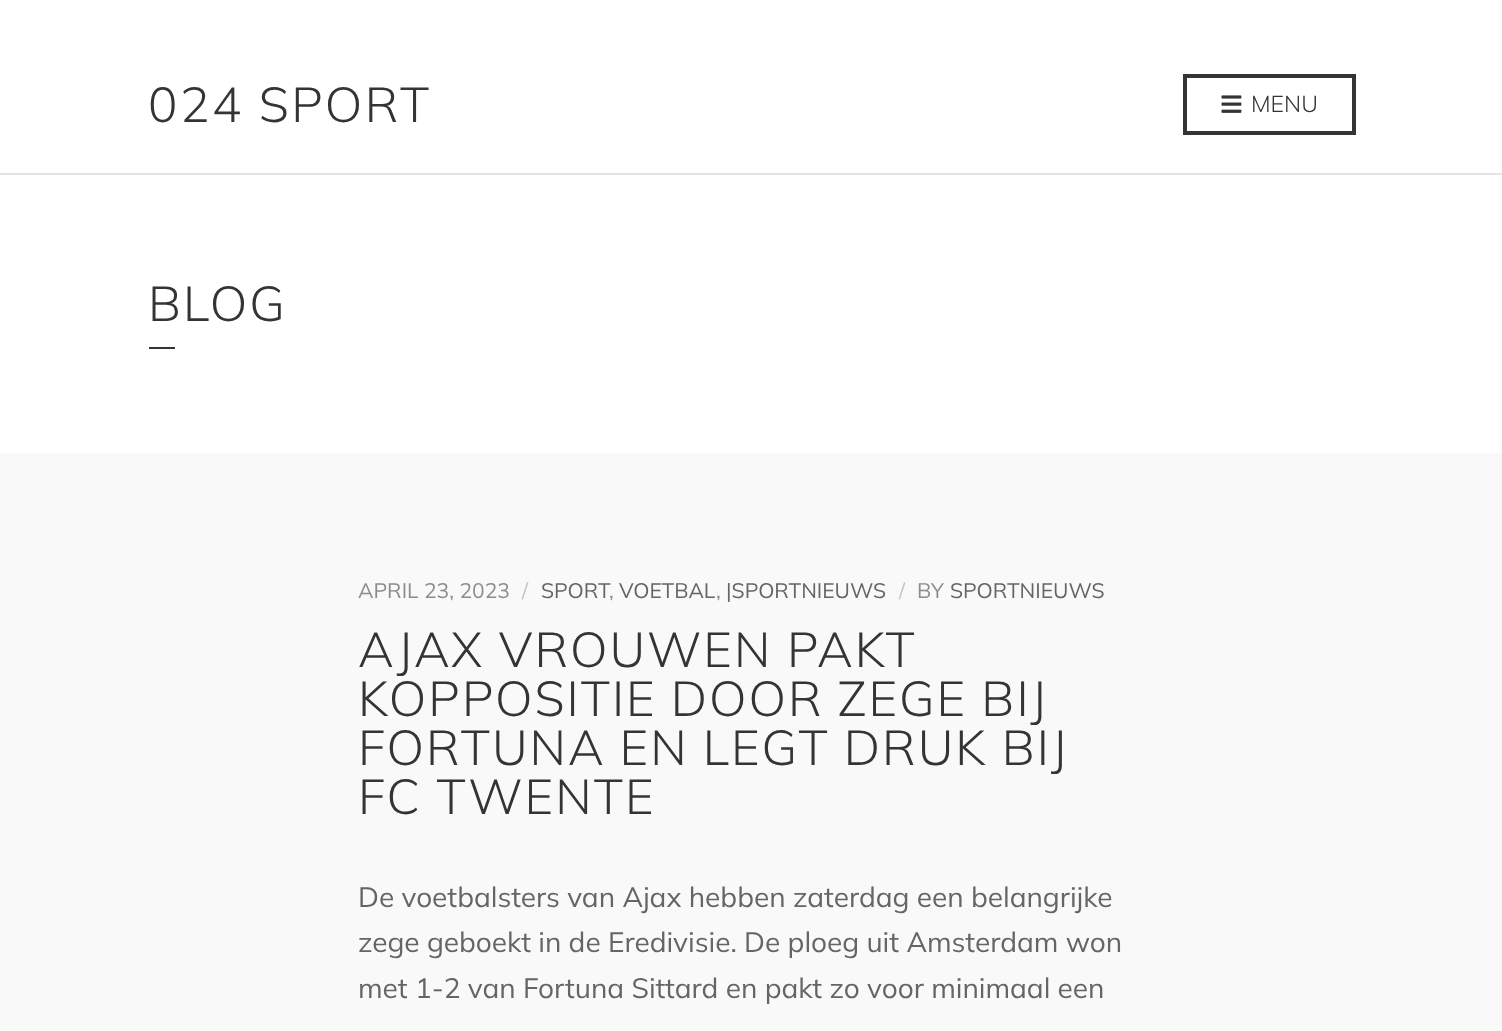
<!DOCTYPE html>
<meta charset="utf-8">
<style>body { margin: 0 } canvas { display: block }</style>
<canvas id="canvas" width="1502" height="1031"></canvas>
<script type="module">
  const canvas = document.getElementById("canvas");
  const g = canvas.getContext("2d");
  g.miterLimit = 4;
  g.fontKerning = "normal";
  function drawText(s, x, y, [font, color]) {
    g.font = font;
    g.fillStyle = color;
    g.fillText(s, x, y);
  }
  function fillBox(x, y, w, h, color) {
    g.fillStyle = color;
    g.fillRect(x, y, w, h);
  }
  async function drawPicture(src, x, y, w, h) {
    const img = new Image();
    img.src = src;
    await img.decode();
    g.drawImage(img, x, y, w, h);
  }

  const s1 = ["300 49px Mulish", "#343434"];
  const s2 = ["300 23px Mulish", "#343434"];
  const s3 = ["21px Mulish", "#8C8C8C"];
  const s4 = ["21px Mulish", "#C3C3C3"];
  const s5 = ["21px Mulish", "#656565"];
  const s6 = ["28px Mulish", "#656565"];

  fillBox(0, 0, 1502, 1031, "#FFFFFF");
  fillBox(0, 173, 1502, 2, "#E3E3E3");
  g.letterSpacing = "2.5px";
  drawText("024 SPORT", 148, 122, s1);
  g.strokeStyle = "#343434";
  g.lineWidth = 4;
  g.strokeRect(1185, 76, 169, 57);
  await drawPicture("pic1.png", 1221, 95, 21, 18);
  g.letterSpacing = "0px";
  drawText("MENU", 1251, 112, s2);
  g.letterSpacing = "2px";
  drawText("BLOG", 148, 321, s1);
  fillBox(149, 347, 26, 2, "#343434");
  fillBox(0, 453, 1502, 578, "#F9F9F9");
  g.letterSpacing = "0px";
  drawText("APRIL 23, 2023", 358, 598, s3);
  drawText("/", 522, 598, s4);
  drawText("SPORT", 541, 598, s5);
  drawText(",", 609, 598, s3);
  drawText("VOETBAL", 619, 598, s5);
  drawText(",", 716, 598, s3);
  drawText("|SPORTNIEUWS", 726, 598, s5);
  drawText("/", 899, 598, s4);
  drawText("BY", 917, 598, s3);
  drawText("SPORTNIEUWS", 950, 598, s5);
  g.letterSpacing = "2px";
  drawText("AJAX VROUWEN PAKT", 358, 667, s1);
  g.wordSpacing = "-0.5px";
  drawText("KOPPOSITIE DOOR ZEGE BIJ", 358, 716, s1);
  drawText("FORTUNA EN LEGT DRUK BIJ", 358, 765, s1);
  g.wordSpacing = "0px";
  drawText("FC TWENTE", 358, 814, s1);
  g.letterSpacing = "0px";
  drawText("De voetbalsters van Ajax hebben zaterdag een belangrijke", 358, 907, s6);
  drawText("zege geboekt in de Eredivisie. De ploeg uit Amsterdam won", 358, 952, s6);
  drawText("met 1-2 van Fortuna Sittard en pakt zo voor minimaal een", 358, 998, s6);
</script>
